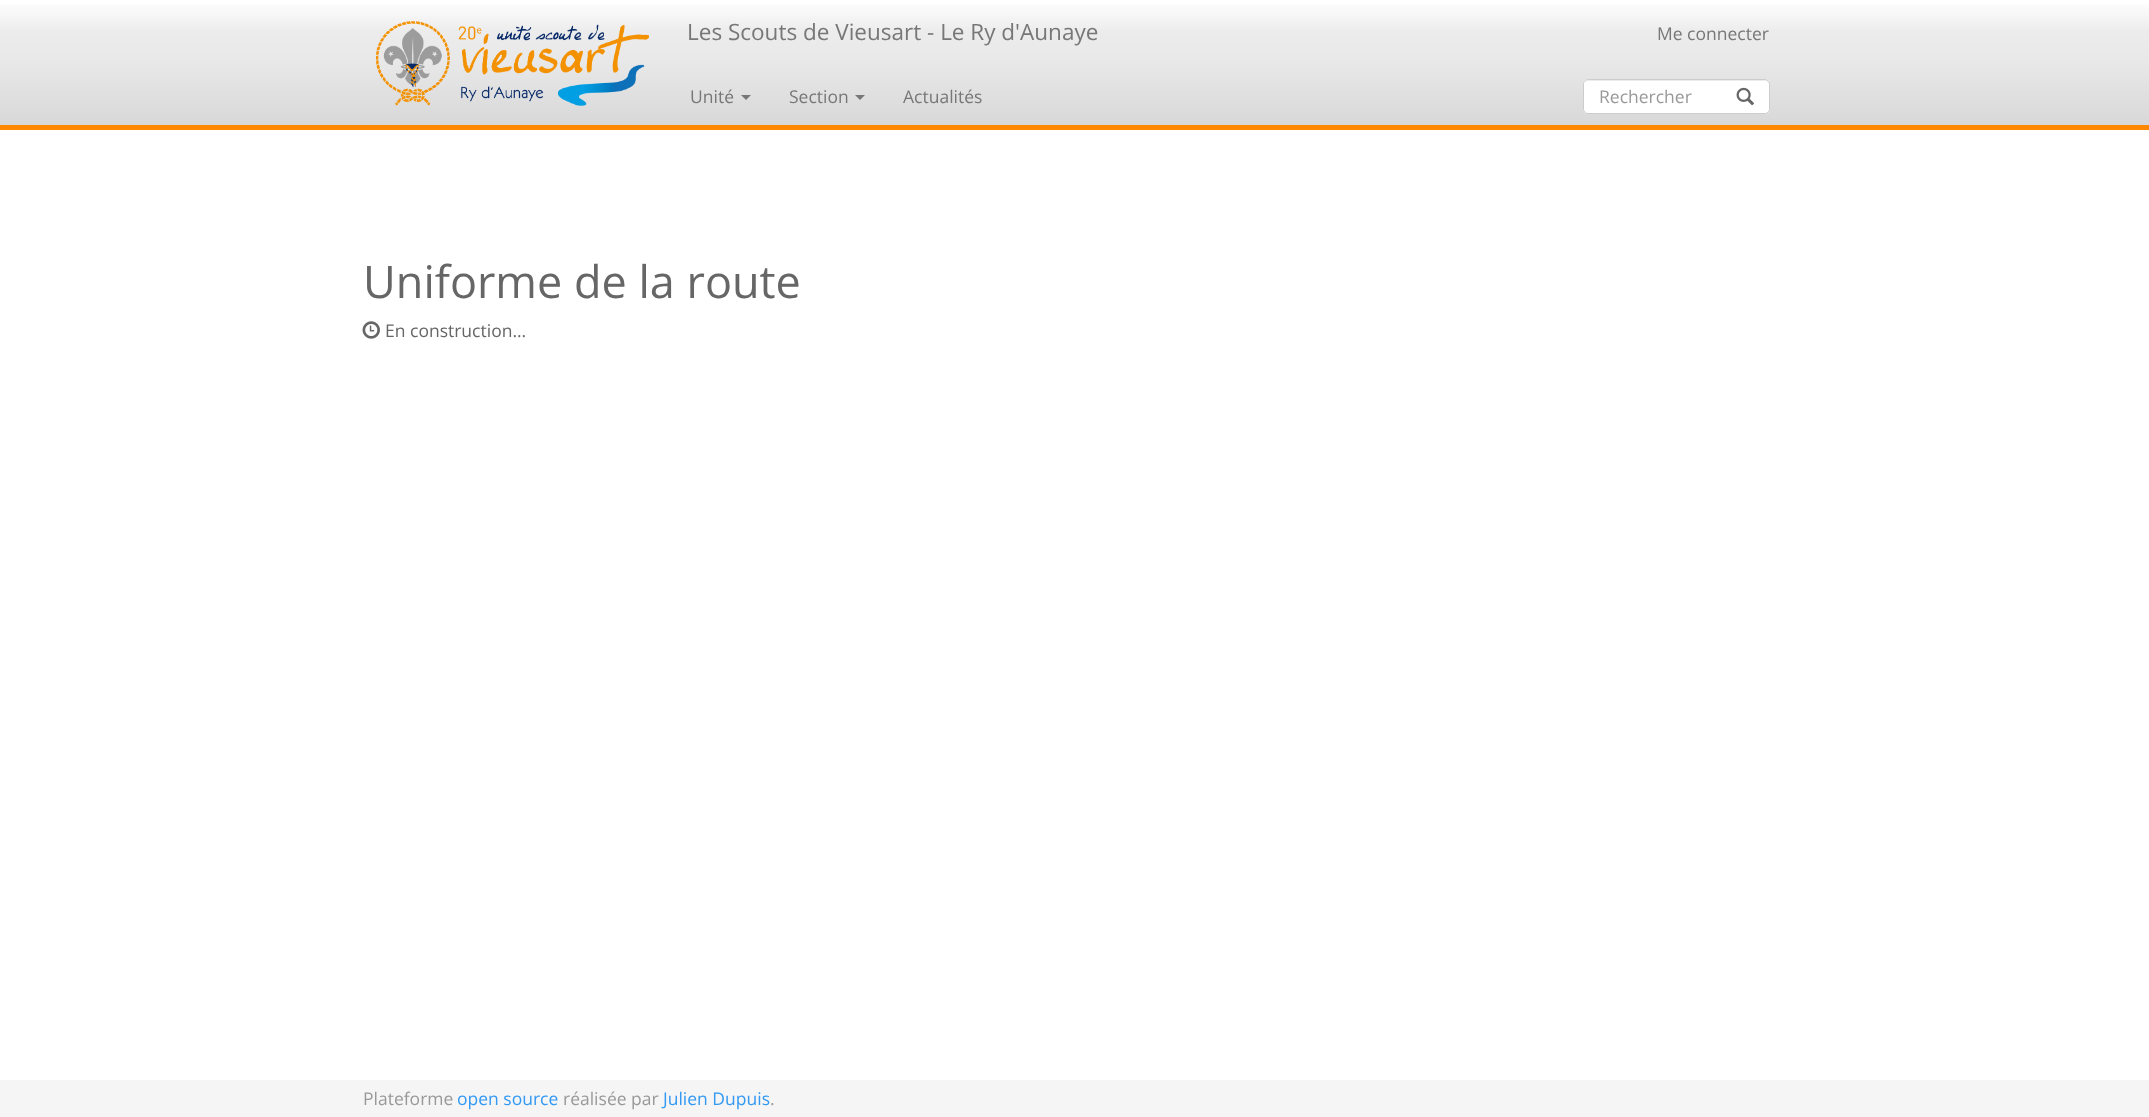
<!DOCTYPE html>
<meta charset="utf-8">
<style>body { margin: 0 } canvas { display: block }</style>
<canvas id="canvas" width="2149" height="1117"></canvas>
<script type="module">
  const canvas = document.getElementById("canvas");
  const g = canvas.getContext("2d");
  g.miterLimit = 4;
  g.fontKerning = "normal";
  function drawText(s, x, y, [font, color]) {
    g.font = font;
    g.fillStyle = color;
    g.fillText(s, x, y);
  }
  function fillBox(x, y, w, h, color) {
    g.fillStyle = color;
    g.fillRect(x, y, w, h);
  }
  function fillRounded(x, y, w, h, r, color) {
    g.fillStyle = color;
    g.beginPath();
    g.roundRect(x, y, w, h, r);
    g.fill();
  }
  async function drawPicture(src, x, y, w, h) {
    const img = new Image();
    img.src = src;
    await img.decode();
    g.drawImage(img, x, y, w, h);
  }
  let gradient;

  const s1 = ["22.5px Open Sans", "#777777"];
  const s2 = ["17.5px Open Sans", "#777777"];
  const s3 = ["17.5px Open Sans", "#999999"];
  const s4 = ["45px Open Sans", "#666666"];
  const s5 = ["17.5px Open Sans", "#666666"];
  const s6 = ["17.5px Open Sans", "#3399F3"];

  fillBox(0, 0, 2149, 1117, "#FFFFFF");
  gradient = g.createLinearGradient(1075, 0, 1075, 63);
  gradient.addColorStop(0, "#FFFFFF");
  gradient.addColorStop(0.5, "#ECECEC");
  gradient.addColorStop(1, "#E8E8E8");
  g.fillStyle = gradient;
  g.fillRect(0, 4, 2149, 59);
  gradient = g.createLinearGradient(1075, 62, 1075, 125);
  gradient.addColorStop(0, "#E8E8E8");
  gradient.addColorStop(0.5, "#E0E0E0");
  gradient.addColorStop(1, "#D8D8D8");
  g.fillStyle = gradient;
  g.fillRect(0, 63, 2149, 62);
  await drawPicture("pic1.png", 376, 21, 273, 85);
  drawText("Les Scouts de Vieusart - Le Ry d'Aunaye", 687, 40, s1);
  drawText("Me connecter", 1657, 40, s2);
  fillBox(0, 125, 2149, 5, "#FF8800");
  drawText("Unité", 690, 103, s2);
  g.beginPath();
  g.moveTo(741, 95);
  g.lineTo(751, 95);
  g.lineTo(746, 100);
  g.closePath();
  g.fill();
  drawText("Section", 789, 103, s2);
  g.beginPath();
  g.moveTo(855, 95);
  g.lineTo(865, 95);
  g.lineTo(860, 100);
  g.closePath();
  g.fill();
  drawText("Actualités", 903, 103, s2);
  fillRounded(1583, 79, 187, 35, 5, "#FFFFFF");
  g.fillStyle = "#ECECEC";
  g.beginPath();
  g.moveTo(1588, 81);
  g.lineTo(1765, 81);
  g.bezierCurveTo(1767, 81, 1769, 83, 1769, 85);
  g.bezierCurveTo(1769, 82, 1768, 80, 1765, 80);
  g.lineTo(1587, 80);
  g.bezierCurveTo(1585, 81, 1584, 83, 1584, 85);
  g.bezierCurveTo(1584, 83, 1585, 81, 1588, 81);
  g.closePath();
  g.fill();
  g.beginPath();
  g.roundRect(1583.5, 79.5, 186, 34, 4.5);
  g.strokeStyle = "#CCCCCC";
  g.stroke();
  drawText("Rechercher", 1599, 103, s3);
  await drawPicture("pic2.png", 1736, 87, 18, 19);
  drawText("Uniforme de la route", 363, 298, s4);
  await drawPicture("pic3.png", 362, 321, 18, 18);
  drawText("En construction...", 385, 337, s5);
  fillBox(0, 1080, 2149, 37, "#F5F5F5");
  drawText("Plateforme", 363, 1105, s3);
  drawText("open source", 457, 1105, s6);
  drawText("réalisée par", 563, 1105, s3);
  drawText("Julien Dupuis", 663, 1105, s6);
  drawText(".", 770, 1105, s3);
</script>
